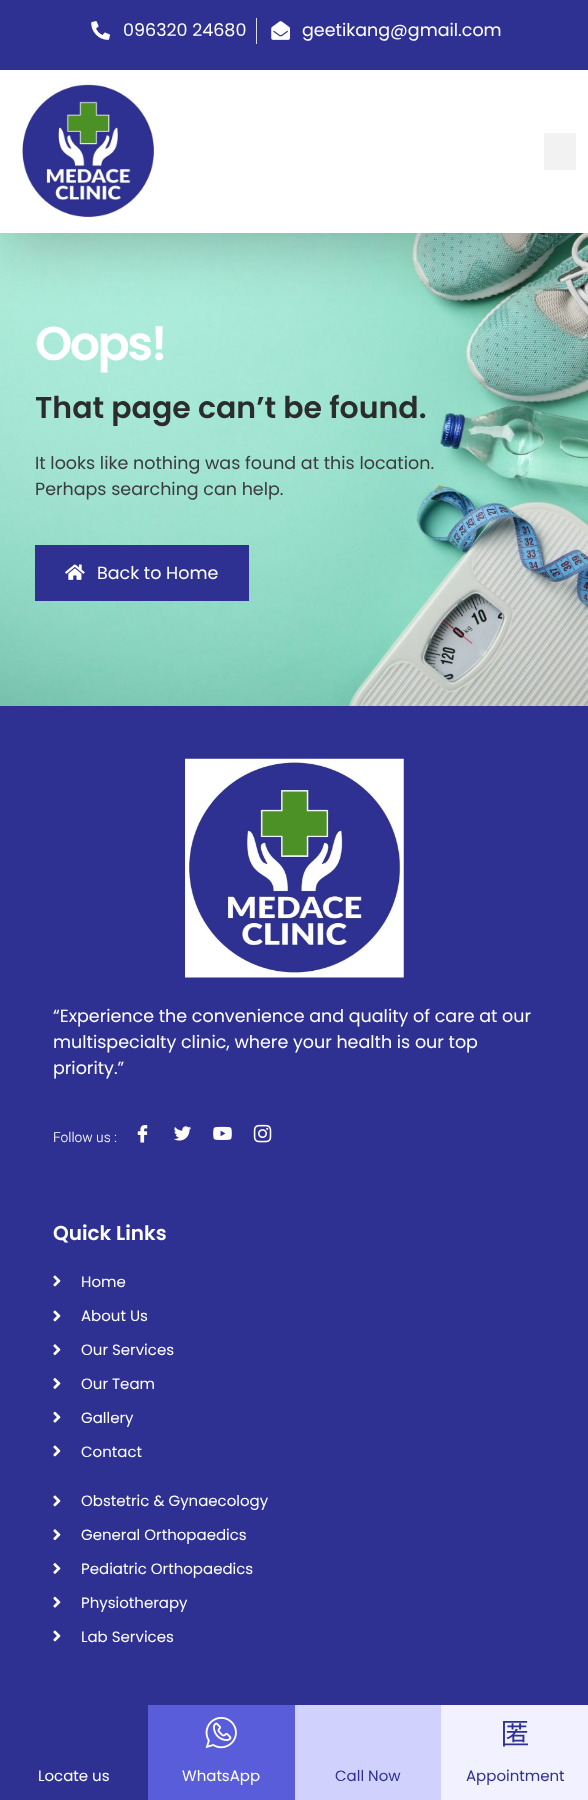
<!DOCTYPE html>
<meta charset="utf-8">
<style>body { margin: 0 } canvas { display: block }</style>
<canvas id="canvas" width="588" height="1800"></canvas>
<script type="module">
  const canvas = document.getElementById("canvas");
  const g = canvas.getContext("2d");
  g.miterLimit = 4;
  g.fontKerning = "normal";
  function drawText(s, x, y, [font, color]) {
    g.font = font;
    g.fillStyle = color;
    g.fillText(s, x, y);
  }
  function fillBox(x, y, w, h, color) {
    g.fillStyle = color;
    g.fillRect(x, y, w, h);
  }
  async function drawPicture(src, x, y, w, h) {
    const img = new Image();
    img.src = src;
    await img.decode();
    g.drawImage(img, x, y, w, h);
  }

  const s1 = ["17.5px Poppins", "#FFFFFF"];
  const s2 = ["600 47.5px Poppins", "#FFFFFF"];
  const s3 = ["600 30px Poppins", "#2C2C2C"];
  const s4 = ["17.5px Poppins", "#3B3B3B"];
  const s5 = ["300 13.75px Heebo", "#FFFFFF"];
  const s6 = ["600 20px Poppins", "#FFFFFF"];
  const s7 = ["15px Poppins", "#FFFFFF"];
  const s8 = ["15px Poppins", "#2E3192"];
  const s9 = ["500 31px WenQuanYi Zen Hei", "#2E3192"];

  fillBox(0, 0, 588, 1800, "#FFFFFF");
  await drawPicture("pic4.png", 0, 233, 588, 473);
  g.fillStyle = "rgba(0, 0, 0, 0.25)";
  g.filter = "blur(31px)";
  g.beginPath();
  g.rect(6, 19, 577, 220);
  g.fill();
  g.filter = "none";
  fillBox(0, 0, 588, 70, "#2E3192");
  await drawPicture("pic1.png", 91, 21, 19, 19);
  drawText("096320 24680", 123, 36, s1);
  fillBox(256, 18, 1, 26, "#DDDDDD");
  await drawPicture("pic2.png", 271, 21, 19, 19);
  drawText("geetikang@gmail.com", 302, 36, s1);
  fillBox(0, 70, 588, 163, "#FFFFFF");
  await drawPicture("pic3.png", 22, 84, 133, 134);
  fillBox(544, 133, 32, 37, "#F2F2F2");
  g.letterSpacing = "-2.5px";
  drawText("Oops!", 35, 360, s2);
  g.letterSpacing = "0px";
  drawText("That page can’t be found.", 35, 418, s3);
  drawText("It looks like nothing was found at this location.", 35, 469, s4);
  drawText("Perhaps searching can help.", 35, 495, s4);
  fillBox(35, 545, 214, 56, "#2E3192");
  await drawPicture("pic5.png", 65, 564, 20, 16);
  drawText("Back to Home", 97, 579, s1);
  fillBox(0, 706, 588, 999, "#2E3192");
  await drawPicture("pic6.png", 185, 758, 219, 220);
  drawText("“Experience the convenience and quality of care at our", 53, 1022, s1);
  drawText("multispecialty clinic, where your health is our top", 53, 1048, s1);
  drawText("priority.”", 53, 1074, s1);
  drawText("Follow us :", 53, 1142, s5);
  await drawPicture("pic7.png", 137, 1125, 11, 18);
  await drawPicture("pic8.png", 174, 1126, 18, 15);
  await drawPicture("pic9.png", 213, 1126, 19, 14);
  await drawPicture("pic10.png", 253, 1124, 19, 19);
  drawText("Quick Links", 53, 1240, s6);
  await drawPicture("pic11.png", 53, 1275, 8, 12);
  drawText("Home", 81, 1287, s7);
  await drawPicture("pic11.png", 53, 1310, 8, 12);
  drawText("About Us", 81, 1321, s7);
  await drawPicture("pic12.png", 53, 1344, 8, 12);
  drawText("Our Services", 81, 1355, s7);
  await drawPicture("pic13.png", 53, 1378, 8, 11);
  drawText("Our Team", 81, 1389, s7);
  await drawPicture("pic14.png", 53, 1411, 8, 12);
  drawText("Gallery", 81, 1423, s7);
  await drawPicture("pic11.png", 53, 1445, 8, 12);
  drawText("Contact", 81, 1457, s7);
  await drawPicture("pic11.png", 53, 1495, 8, 12);
  drawText("Obstetric & Gynaecology", 81, 1506, s7);
  await drawPicture("pic12.png", 53, 1529, 8, 12);
  drawText("General Orthopaedics", 81, 1540, s7);
  await drawPicture("pic13.png", 53, 1563, 8, 11);
  drawText("Pediatric Orthopaedics", 81, 1574, s7);
  await drawPicture("pic14.png", 53, 1596, 8, 12);
  drawText("Physiotherapy", 81, 1608, s7);
  await drawPicture("pic11.png", 53, 1630, 8, 12);
  drawText("Lab Services", 81, 1642, s7);
  fillBox(0, 1705, 148, 95, "#2E3192");
  drawText("Locate us", 38, 1781, s7);
  fillBox(148, 1705, 147, 95, "#595DDA");
  await drawPicture("pic15.png", 205, 1716, 32, 33);
  drawText("WhatsApp", 182, 1781, s7);
  fillBox(295, 1705, 146, 95, "#D0D1FD");
  drawText("Call Now", 335, 1781, s8);
  fillBox(441, 1705, 147, 95, "#F1F1FF");
  drawText("匿", 500, 1743, s9);
  drawText("Appointment", 466, 1781, s8);
</script>
